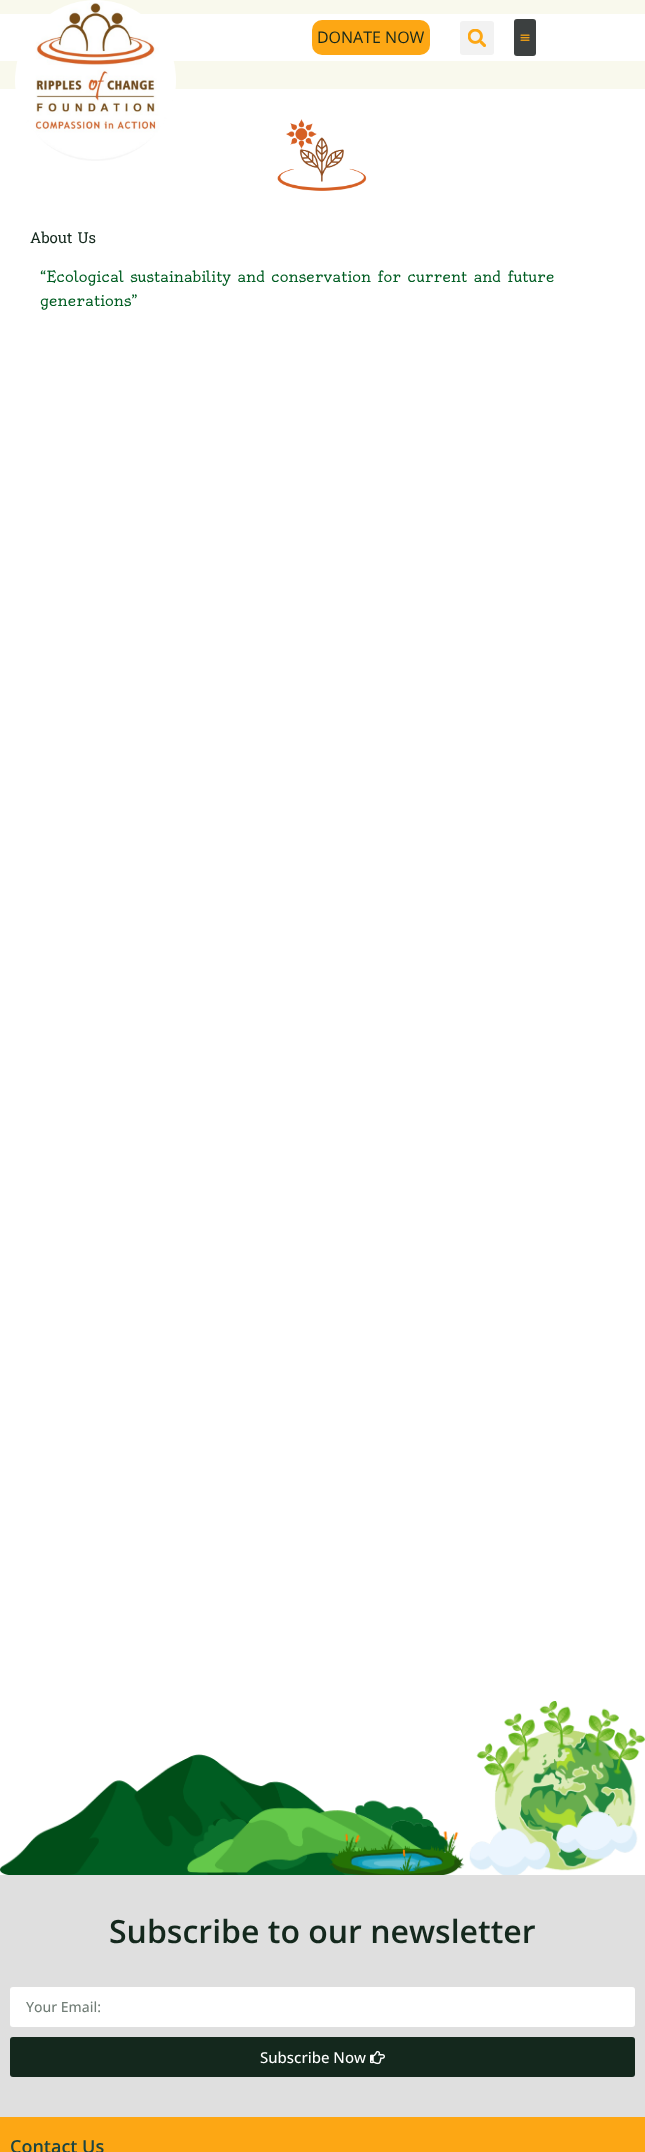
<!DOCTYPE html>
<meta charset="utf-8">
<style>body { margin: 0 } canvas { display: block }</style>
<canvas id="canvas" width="645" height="2152"></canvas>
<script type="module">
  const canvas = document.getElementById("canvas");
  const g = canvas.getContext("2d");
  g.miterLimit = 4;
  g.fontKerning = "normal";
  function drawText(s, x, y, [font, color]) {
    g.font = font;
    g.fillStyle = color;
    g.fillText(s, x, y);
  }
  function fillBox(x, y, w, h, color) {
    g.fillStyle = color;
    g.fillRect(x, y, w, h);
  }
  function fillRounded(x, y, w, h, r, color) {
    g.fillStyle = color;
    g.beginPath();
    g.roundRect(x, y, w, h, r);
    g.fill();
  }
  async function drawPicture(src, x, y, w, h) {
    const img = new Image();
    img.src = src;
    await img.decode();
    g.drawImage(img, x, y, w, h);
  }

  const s1 = ["16px Open Sans", "#14281D"];
  const s2 = ["15px Battambang", "#14281D"];
  const s3 = ["15px Oldenburg", "#005D22"];
  const s4 = ["600 32px Open Sans", "#14281D"];
  const s5 = ["500 14px Open Sans", "#727E77"];
  const s6 = ["500 15px Open Sans", "#FFFFFF"];
  const s7 = ["600 18px Open Sans", "#1B4544"];

  fillBox(0, 0, 645, 2152, "#F9F9ED");
  fillBox(0, 14, 645, 47, "#FFFFFF");
  fillBox(0, 89, 645, 1786, "#FFFFFF");
  await drawPicture("pic1.png", 15, 0, 161, 161);
  fillRounded(312, 20, 118, 35, 10, "#FDA714");
  drawText("DONATE NOW", 317, 43, s1);
  fillRounded(460, 21, 34, 34, 3, "#F2F2F2");
  await drawPicture("pic2.png", 468, 29, 18, 18);
  fillRounded(514, 19, 22, 37, 3, "#3C4040");
  await drawPicture("pic3.png", 520, 34, 10, 7);
  await drawPicture("pic4.png", 0, 1701, 645, 174);
  await drawPicture("pic5.png", 277, 119, 90, 72);
  drawText("About Us", 30, 243, s2);
  drawText("“Ecological sustainability and conservation for current and future", 40, 282, s3);
  drawText("generations”", 40, 306, s3);
  fillBox(0, 1875, 645, 242, "#DFDFDF");
  drawText("Subscribe to our newsletter", 109, 1943, s4);
  fillRounded(10, 1987, 625, 40, 3, "#FFFFFF");
  drawText("Your Email:", 26, 2012, s5);
  fillRounded(10, 2037, 625, 40, 3, "#14281D");
  drawText("Subscribe Now", 260, 2063, s6);
  await drawPicture("pic6.png", 370, 2051, 15, 14);
  fillBox(0, 2117, 645, 35, "#FDA714");
  drawText("Contact Us", 10, 2153, s7);
</script>
